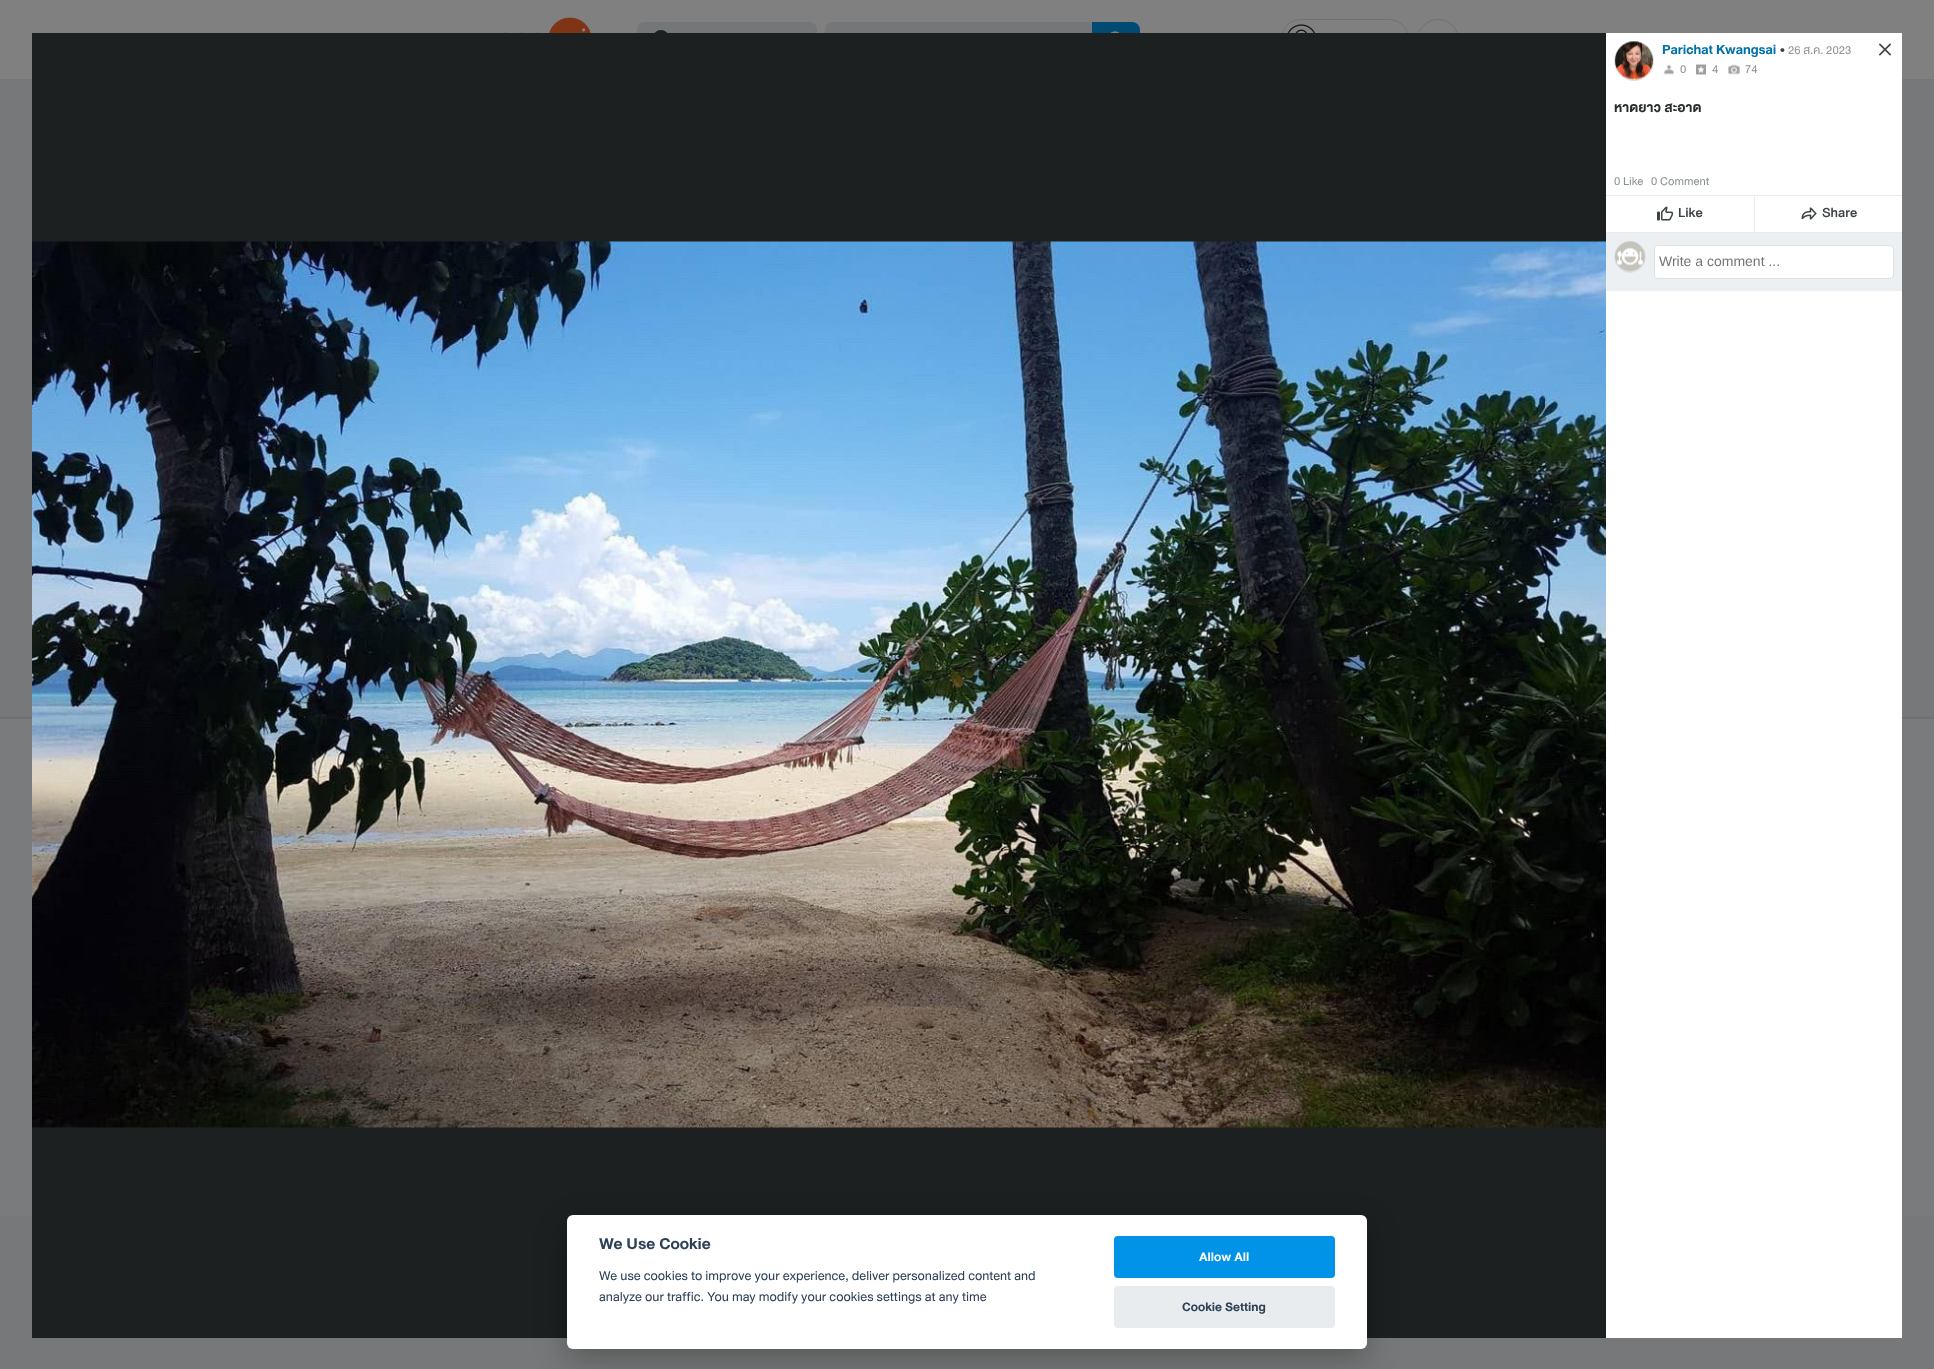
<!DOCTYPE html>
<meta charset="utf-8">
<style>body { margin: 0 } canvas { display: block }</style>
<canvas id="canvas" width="1934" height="1369"></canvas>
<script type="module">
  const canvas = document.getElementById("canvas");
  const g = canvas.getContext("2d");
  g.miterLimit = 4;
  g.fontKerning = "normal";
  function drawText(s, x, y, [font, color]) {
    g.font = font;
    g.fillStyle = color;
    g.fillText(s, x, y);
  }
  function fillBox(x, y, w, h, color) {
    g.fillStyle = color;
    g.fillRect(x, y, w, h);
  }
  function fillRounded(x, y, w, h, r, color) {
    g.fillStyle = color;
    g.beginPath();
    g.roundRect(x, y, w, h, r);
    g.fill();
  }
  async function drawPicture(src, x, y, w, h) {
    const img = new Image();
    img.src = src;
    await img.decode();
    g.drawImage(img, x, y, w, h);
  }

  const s1 = ["bold 14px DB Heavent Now", "#0070A8"];
  const s2 = ["14px DB Heavent Now", "#3D4245"];
  const s3 = ["12px DB Heavent Now", "#8C9396"];
  const s4 = ["bold 14px DB Heavent Now", "#282D2E"];
  const s5 = ["500 14px DB Heavent Now", "#3D4245"];
  const s6 = ["14px Liberation Sans", "#757575"];
  const s7 = ["bold 16.75px DB Heavent Now", "#2D4156"];
  const s8 = ["13.6px DB Heavent Now", "#2D4156"];
  const s9 = ["bold 13px DB Heavent Now", "#FFFFFF"];
  const s10 = ["bold 13px DB Heavent Now", "#2D4156"];

  fillBox(0, 0, 1934, 1369, "#777879");
  fillBox(0, 0, 1934, 79, "#808080");
  await drawPicture("pic1.png", 504, 17, 87, 16);
  fillRounded(637, 22, 180, 36, 8, "#757677");
  await drawPicture("pic2.png", 654, 30, 14, 3);
  g.beginPath();
  g.roundRect(825, 22, 267, 36, [8, 0, 0, 8]);
  g.fill();
  g.fillStyle = "#004A74";
  g.beginPath();
  g.roundRect(1092, 22, 48, 36, [0, 8, 8, 0]);
  g.fill();
  await drawPicture("pic3.png", 1110, 31, 10, 2);
  g.beginPath();
  g.roundRect(1281.5, 19.5, 127, 41, 19.5);
  g.strokeStyle = "#6F7172";
  g.stroke();
  await drawPicture("pic4.png", 1287, 24, 28, 9);
  g.beginPath();
  g.arc(1438, 40, 20.5, 0, Math.PI * 2);
  g.stroke();
  fillBox(0, 719, 1934, 497, "#7A7B7C");
  fillBox(0, 717, 1934, 2, "#6F7172");
  fillBox(1606, 33, 296, 1305, "#FFFFFF");
  fillBox(32, 33, 1574, 1305, "#1D2021");
  await drawPicture("pic5.png", 32, 241, 1574, 887);
  g.fillStyle = "#EDF0F2";
  g.beginPath();
  g.arc(1634, 61, 19.5, 0, Math.PI * 2);
  g.fill();
  g.strokeStyle = "#DEE2E4";
  g.stroke();
  await drawPicture("pic6.png", 1615, 41, 38, 39);
  drawText("Parichat Kwangsai", 1662, 54, s1);
  drawText("•", 1780, 54, s2);
  drawText("26 ส.ค. 2023", 1788, 54, s3);
  await drawPicture("pic7.png", 1664, 64, 10, 11);
  drawText("0", 1680, 73, s3);
  await drawPicture("pic8.png", 1696, 64, 10, 11);
  drawText("4", 1712, 73, s3);
  await drawPicture("pic9.png", 1728, 64, 12, 11);
  drawText("74", 1745, 73, s3);
  drawText("หาดยาว สะอาด", 1614, 112, s4);
  drawText("0 Like", 1614, 185, s3);
  drawText("0 Comment", 1651, 185, s3);
  fillBox(1606, 195, 296, 38, "#E9ECEE");
  fillBox(1606, 196, 148, 36, "#FFFFFF");
  await drawPicture("pic10.png", 1657, 206, 16, 15);
  drawText("Like", 1678, 217, s5);
  fillBox(1755, 196, 147, 36, "#FFFFFF");
  await drawPicture("pic11.png", 1801, 207, 16, 13);
  drawText("Share", 1822, 217, s5);
  fillBox(1606, 233, 296, 58, "#EDF0F2");
  g.beginPath();
  g.arc(1630, 257, 15.5, 0, Math.PI * 2);
  g.stroke();
  await drawPicture("pic12.png", 1615, 241, 30, 31);
  g.fillStyle = "#FFFFFF";
  g.beginPath();
  g.roundRect(1654.5, 245.5, 239, 33, 3.5);
  g.fill();
  g.stroke();
  drawText("Write a comment ...", 1659, 266, s6);
  await drawPicture("pic13.png", 1879, 43, 12, 13);
  g.fillStyle = "rgba(2, 2, 3, 0.28)";
  g.filter = "blur(15px)";
  g.beginPath();
  g.roundRect(567, 1225, 800, 134, 6);
  g.fill();
  g.filter = "none";
  fillRounded(567, 1215, 800, 134, 6, "#FFFFFF");
  drawText("We Use Cookie", 599, 1249, s7);
  drawText("We use cookies to improve your experience, deliver personalized content and", 599, 1280, s8);
  drawText("analyze our traffic. You may modify your cookies settings at any time", 599, 1301, s8);
  fillRounded(1114, 1236, 221, 42, 4, "#0093E8");
  drawText("Allow All", 1199, 1261, s9);
  fillRounded(1114, 1286, 221, 42, 4, "#E9ECEE");
  drawText("Cookie Setting", 1182, 1311, s10);
</script>
